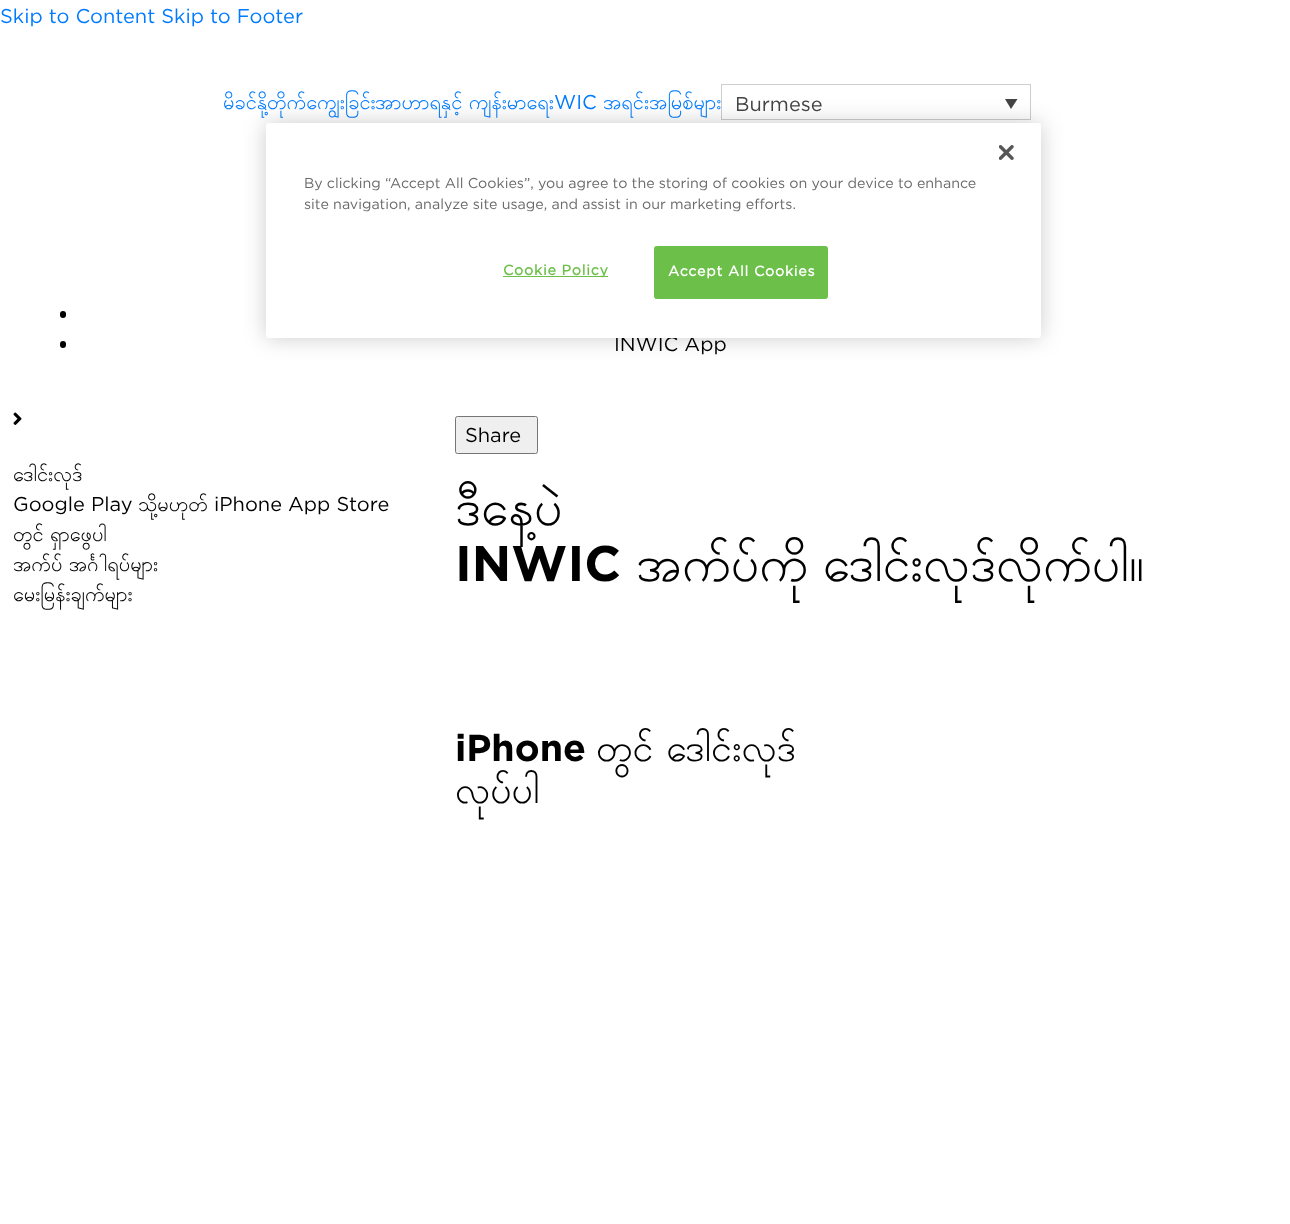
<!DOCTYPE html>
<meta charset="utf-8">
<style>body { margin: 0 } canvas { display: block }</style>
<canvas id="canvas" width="1290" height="1224"></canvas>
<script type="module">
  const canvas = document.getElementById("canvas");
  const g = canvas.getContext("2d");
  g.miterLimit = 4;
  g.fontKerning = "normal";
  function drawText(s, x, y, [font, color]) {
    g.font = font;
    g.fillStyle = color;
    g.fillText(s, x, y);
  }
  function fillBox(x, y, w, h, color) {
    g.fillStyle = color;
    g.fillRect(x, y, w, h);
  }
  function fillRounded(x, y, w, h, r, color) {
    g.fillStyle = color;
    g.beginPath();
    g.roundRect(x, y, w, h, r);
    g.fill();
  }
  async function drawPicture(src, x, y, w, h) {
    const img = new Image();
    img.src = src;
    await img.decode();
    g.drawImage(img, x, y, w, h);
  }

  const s1 = ["20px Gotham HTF", "#007BFF"];
  const s2 = ["20px Padauk", "#007BFF"];
  const s3 = ["20px Gotham HTF", "#444444"];
  const s4 = ["20px Gotham HTF", "#000000"];
  const s5 = ["14.25px Gotham HTF", "#696969"];
  const s6 = ["bold 14.25px 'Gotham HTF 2'", "#6CC04A"];
  const s7 = ["bold 14.25px 'Gotham HTF 2'", "#FFFFFF"];
  const s8 = ["20px Padauk", "#000000"];
  const s9 = ["50px Padauk", "#000000"];
  const s10 = ["bold 50px Gotham HTF", "#000000"];
  const s11 = ["bold 37.5px Gotham HTF", "#000000"];
  const s12 = ["37.5px Padauk", "#000000"];

  fillBox(0, 0, 1290, 1224, "#FFFFFF");
  drawText("Skip to Content Skip to Footer", 0, 23, s1);
  drawText("မိခင်နို့တိုက်ကျွေးခြင်း", 223, 109, s2);
  g.wordSpacing = "-1px";
  drawText("အာဟာရနှင့် ကျန်းမာရေး", 375, 109, s2);
  g.wordSpacing = "0px";
  drawText("WIC", 554, 109, s1);
  drawText("အရင်းအမြစ်များ", 603, 109, s2);
  g.strokeStyle = "#CDCDCD";
  g.strokeRect(721.5, 84.5, 309, 35);
  drawText("Burmese", 735, 111, s3);
  g.beginPath();
  g.moveTo(1005, 99);
  g.lineTo(1017.5, 99);
  g.lineTo(1011, 109);
  g.closePath();
  g.fill();
  g.fillStyle = "rgba(0, 0, 0, 0.2)";
  g.filter = "blur(11px)";
  g.beginPath();
  g.roundRect(266, 123, 775, 215, 3);
  g.fill();
  g.filter = "none";
  drawText("INWIC App", 614, 351, s4);
  fillRounded(266, 123, 775, 215, 3, "#FFFFFF");
  await drawPicture("pic1.png", 999, 145, 15, 15);
  drawText("By clicking “Accept All Cookies”, you agree to the storing of cookies on your device to enhance", 304, 188, s5);
  drawText("site navigation, analyze site usage, and assist in our marketing efforts.", 304, 209, s5);
  fillBox(503, 276, 105, 1, "#6CC04A");
  g.letterSpacing = "0.75px";
  drawText("Cookie Policy", 503, 275, s6);
  g.beginPath();
  g.roundRect(654.5, 246.5, 173, 52, 2);
  g.fill();
  g.strokeStyle = "#6CC04A";
  g.stroke();
  drawText("Accept All Cookies", 668, 276, s7);
  fillRounded(60, 311, 6, 7, 3, "#000000");
  fillRounded(60, 341, 6, 7, 3, "#000000");
  await drawPicture("pic2.png", 13, 412, 9, 13);
  g.letterSpacing = "0px";
  drawText("ဒေါင်းလုဒ်", 13, 481, s8);
  drawText("Google Play", 13, 511, s4);
  drawText("သို့မဟုတ်", 138, 511, s8);
  drawText("iPhone App Store", 214, 511, s4);
  g.wordSpacing = "-1px";
  drawText("တွင် ရှာဖွေပါ", 13, 541, s8);
  drawText("အက်ပ် အင်္ဂါရပ်များ", 13, 571, s8);
  g.wordSpacing = "0px";
  drawText("မေးမြန်းချက်များ", 13, 601, s8);
  g.fillStyle = "#EFEFEF";
  g.beginPath();
  g.roundRect(455.5, 416.5, 82, 37, 2);
  g.fill();
  g.strokeStyle = "#767676";
  g.stroke();
  drawText("Share", 465, 442, s4);
  drawText("ဒီနေ့ပဲ", 455, 525, s9);
  drawText("INWIC", 455, 581, s10);
  g.wordSpacing = "-4px";
  drawText("အက်ပ်ကို ဒေါင်းလုဒ်လိုက်ပါ။", 636, 581, s9);
  g.wordSpacing = "0px";
  drawText("iPhone", 455, 761, s11);
  g.wordSpacing = "-1px";
  drawText("တွင် ဒေါင်းလုဒ်", 596, 761, s12);
  g.wordSpacing = "0px";
  drawText("လုပ်ပါ", 455, 803, s12);
</script>
